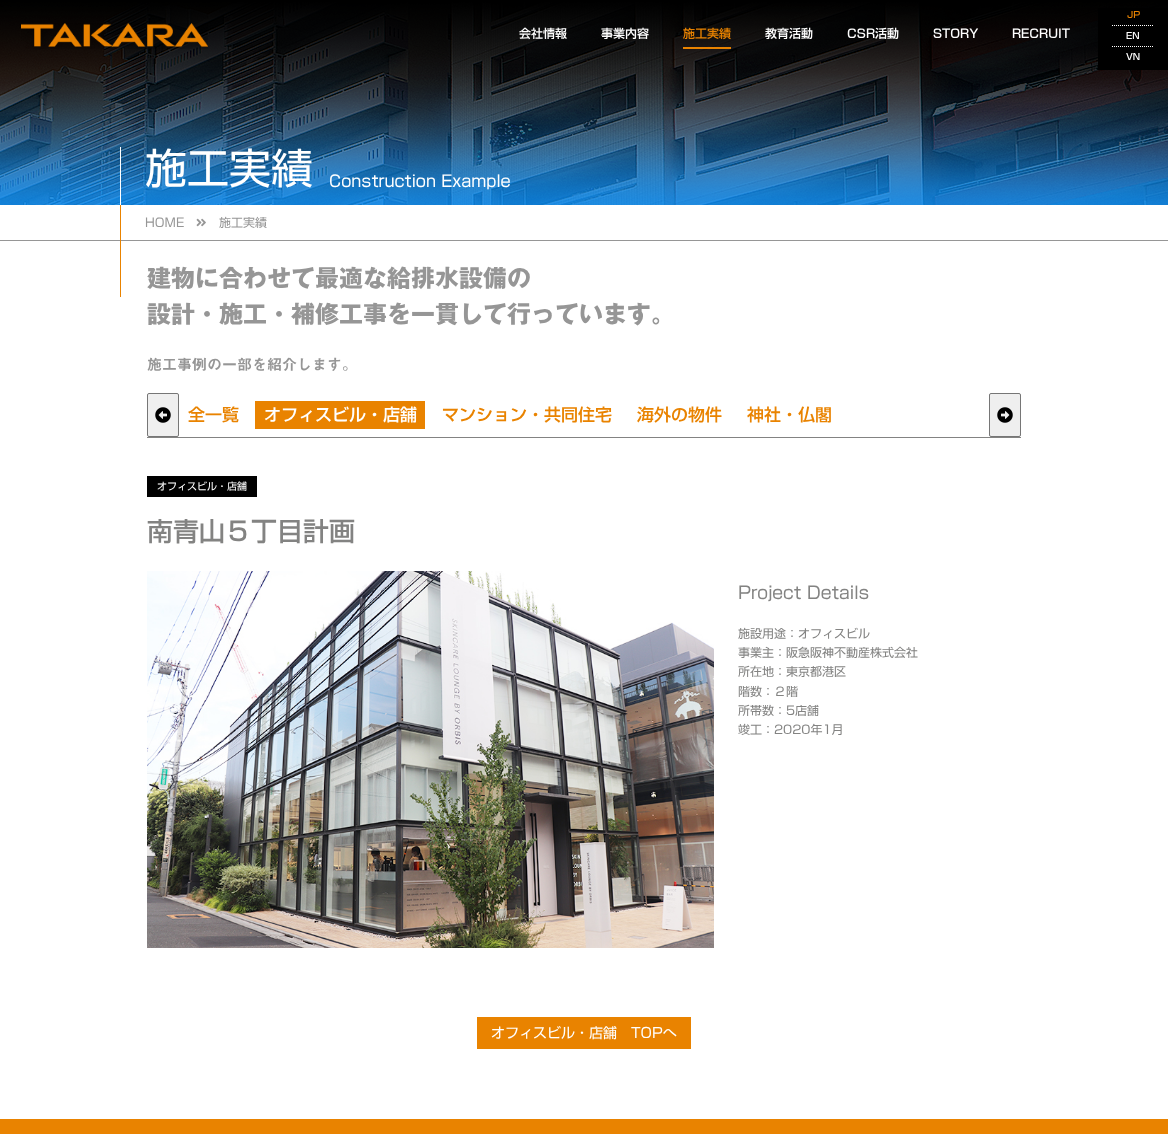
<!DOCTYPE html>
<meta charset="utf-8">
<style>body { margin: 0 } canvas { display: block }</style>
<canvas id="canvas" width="1168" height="1134"></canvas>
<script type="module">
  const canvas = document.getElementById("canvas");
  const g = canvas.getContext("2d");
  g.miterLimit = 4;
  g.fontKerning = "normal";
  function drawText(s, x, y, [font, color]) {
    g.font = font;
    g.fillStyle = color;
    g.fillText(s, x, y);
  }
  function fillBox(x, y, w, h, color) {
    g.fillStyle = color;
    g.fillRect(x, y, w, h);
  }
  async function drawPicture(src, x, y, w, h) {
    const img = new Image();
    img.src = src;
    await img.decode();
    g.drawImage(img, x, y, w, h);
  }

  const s1 = ["500 12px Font", "#FFFFFF"];
  const s2 = ["500 12px Font", "#E98300"];
  const s3 = ["500 9px Font", "#E98300"];
  const s4 = ["500 9px Font", "#FFFFFF"];
  const s5 = ["42px Font", "#FFFFFF"];
  const s6 = ["16px Font", "#FFFFFF"];
  const s7 = ["12px Font", "#969696"];
  const s8 = ["bold 24px Font", "#969696"];
  const s9 = ["600 15px Font", "#969696"];
  const s10 = ["500 17px Font", "#E98300"];
  const s11 = ["500 17px Font", "#FFFFFF"];
  const s12 = ["10px Font", "#FFFFFF"];
  const s13 = ["500 26px Font", "#838382"];
  const s14 = ["17px Font", "#838382"];
  const s15 = ["12px Font", "#838382"];
  const s16 = ["14px Font", "#FFFFFF"];

  fillBox(0, 0, 1168, 1134, "#FFFFFF");
  await drawPicture("pic2.png", 0, 0, 1168, 205);
  await drawPicture("pic1.png", 21, 23, 187, 26);
  drawText("会社情報", 519, 38, s1);
  drawText("事業内容", 601, 38, s1);
  drawText("施工実績", 683, 38, s2);
  fillBox(683, 47, 48, 2, "#E98300");
  drawText("教育活動", 765, 38, s1);
  drawText("CSR活動", 847, 38, s1);
  drawText("STORY", 933, 38, s1);
  drawText("RECRUIT", 1012, 38, s1);
  fillBox(1098, 8, 70, 62, "#000000");
  drawText("JP", 1127, 18, s3);
  g.beginPath();
  g.moveTo(1112, 25.5);
  g.lineTo(1154, 25.5);
  g.strokeStyle = "#FFFFFF";
  g.setLineDash([1, 1]);
  g.stroke();
  drawText("EN", 1126, 39, s4);
  g.beginPath();
  g.moveTo(1112, 46.5);
  g.lineTo(1154, 46.5);
  g.stroke();
  drawText("VN", 1126, 60, s4);
  fillBox(120, 147, 1, 58, "#FFFFFF");
  drawText("施工実績", 145, 184, s5);
  drawText("Construction Example", 329, 187, s6);
  fillBox(0, 240, 1168, 1, "#969696");
  fillBox(120, 205, 1, 92, "#E98300");
  drawText("HOME", 145, 227, s7);
  await drawPicture("pic3.png", 196, 218, 10, 9);
  drawText("施工実績", 219, 227, s7);
  drawText("建物に合わせて最適な給排水設備の", 147, 287, s8);
  drawText("設計・施工・補修工事を一貫して行っています。", 147, 323, s8);
  drawText("施工事例の一部を紹介します。", 147, 370, s9);
  fillBox(147, 437, 874, 1, "#838382");
  g.fillStyle = "#EFEFEF";
  g.beginPath();
  g.roundRect(147.5, 393.5, 31, 43, 1.5);
  g.fill();
  g.strokeStyle = "#767676";
  g.setLineDash([]);
  g.stroke();
  await drawPicture("pic4.png", 155, 407, 16, 16);
  drawText("全一覧", 188, 421, s10);
  fillBox(255, 401, 170, 28, "#E98300");
  drawText("オフィスビル・店舗", 264, 421, s11);
  drawText("マンション・共同住宅", 442, 421, s10);
  drawText("海外の物件", 637, 421, s10);
  drawText("神社・仏閣", 747, 421, s10);
  g.fillStyle = "#EFEFEF";
  g.beginPath();
  g.roundRect(989.5, 393.5, 31, 43, 1.5);
  g.fill();
  g.stroke();
  await drawPicture("pic5.png", 997, 407, 16, 16);
  fillBox(147, 476, 110, 21, "#000000");
  drawText("オフィスビル・店舗", 157, 490, s12);
  drawText("南青山５丁目計画", 147, 541, s13);
  await drawPicture("pic6.png", 147, 571, 567, 377);
  drawText("Project Details", 738, 599, s14);
  drawText("施設用途：オフィスビル", 738, 638, s15);
  drawText("事業主：阪急阪神不動産株式会社", 738, 657, s15);
  drawText("所在地：東京都港区", 738, 676, s15);
  drawText("階数：２階", 738, 696, s15);
  drawText("所帯数：5店舗", 738, 715, s15);
  drawText("竣工：2020年1月", 738, 734, s15);
  fillBox(477, 1017, 214, 32, "#E98300");
  drawText("オフィスビル・店舗　TOPへ", 491, 1038, s16);
  fillBox(0, 1119, 1168, 15, "#E98300");
</script>
